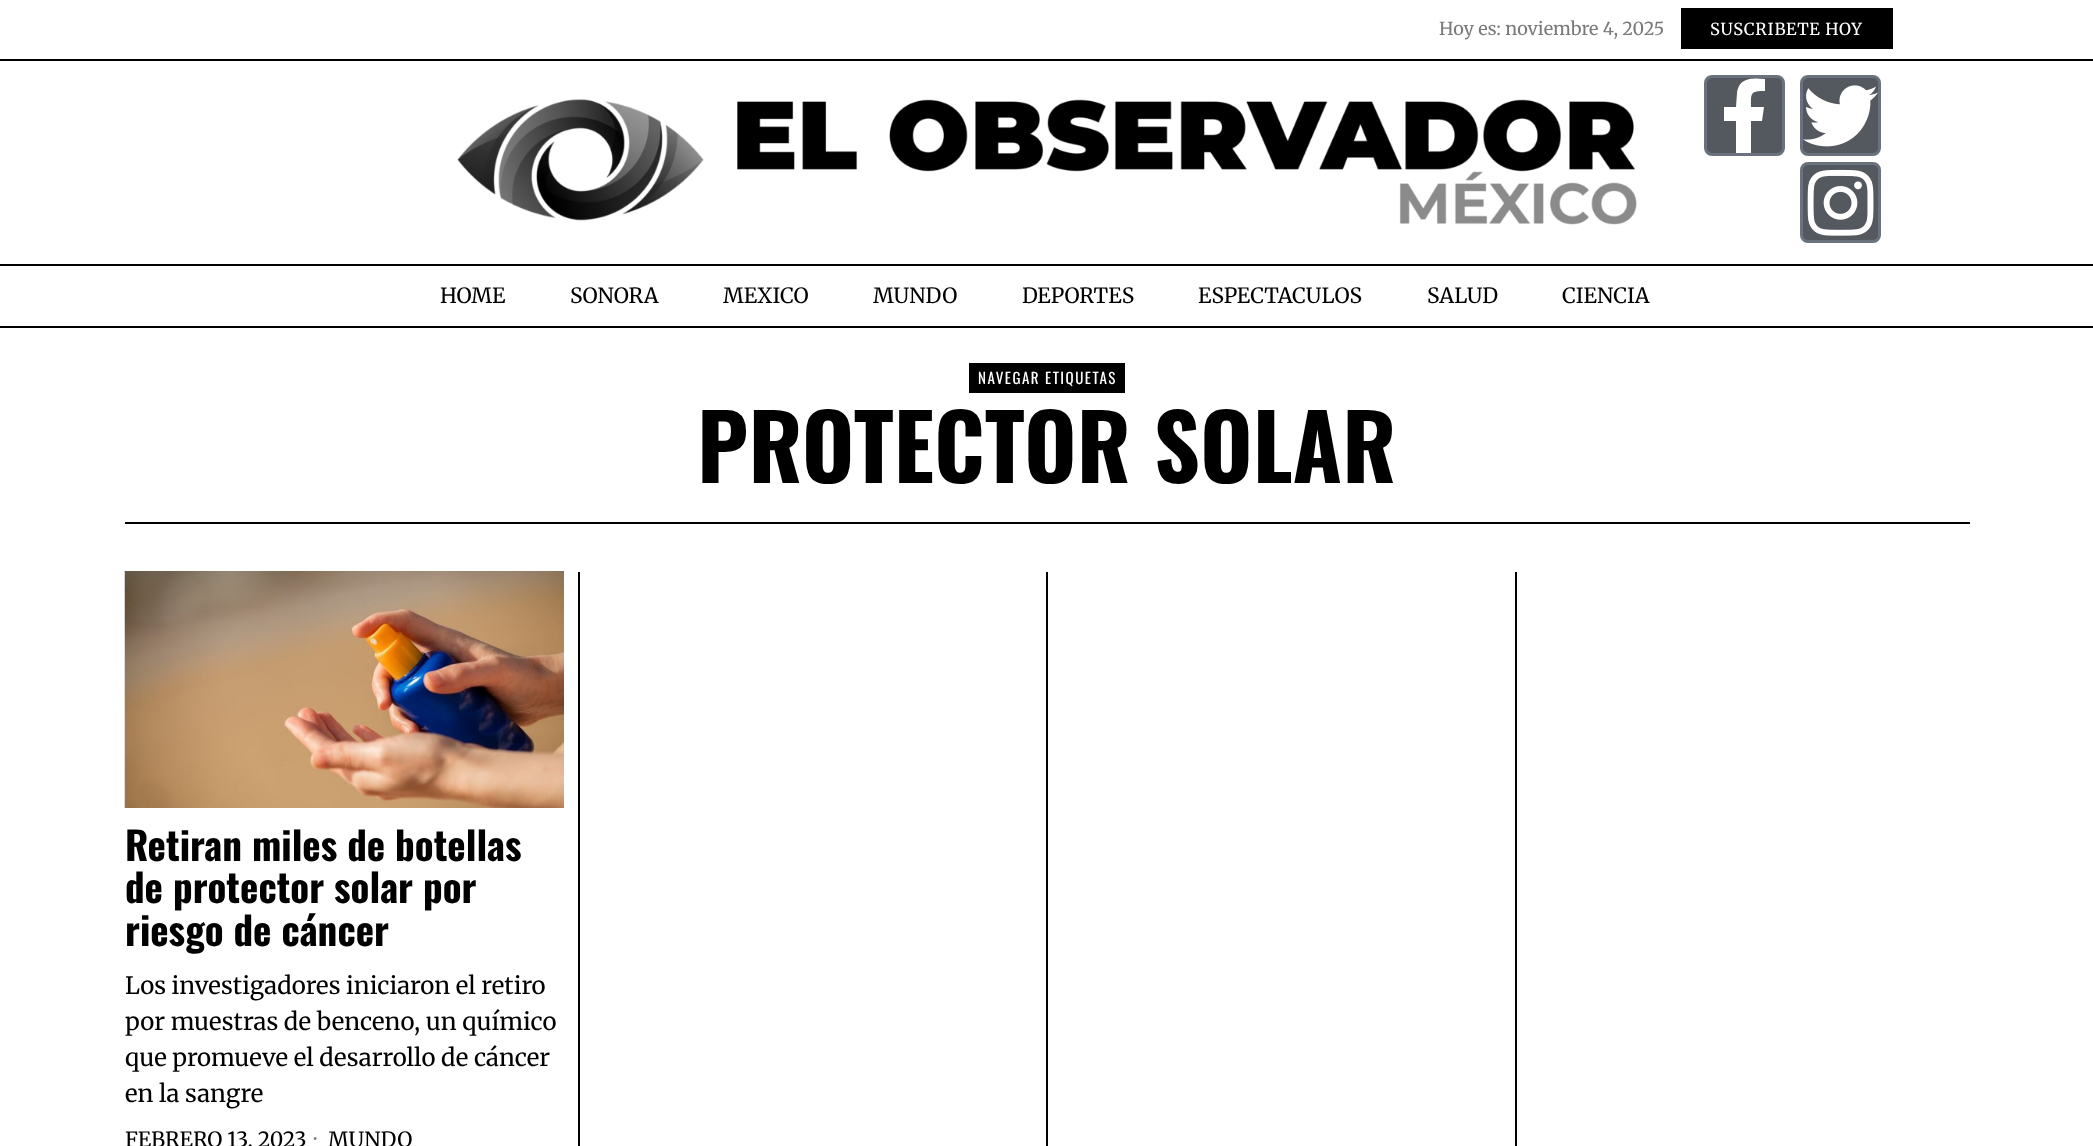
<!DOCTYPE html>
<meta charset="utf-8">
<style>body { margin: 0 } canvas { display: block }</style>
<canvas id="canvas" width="2093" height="1146"></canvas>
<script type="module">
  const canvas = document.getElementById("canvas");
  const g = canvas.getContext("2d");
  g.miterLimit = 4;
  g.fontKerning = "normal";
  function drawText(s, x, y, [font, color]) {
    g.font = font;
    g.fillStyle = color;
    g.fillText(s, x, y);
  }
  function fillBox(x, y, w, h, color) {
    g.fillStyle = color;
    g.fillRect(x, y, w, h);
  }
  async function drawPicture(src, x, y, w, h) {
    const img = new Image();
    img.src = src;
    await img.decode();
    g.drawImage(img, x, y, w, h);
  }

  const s1 = ["18px Merriweather", "#7A7A7A"];
  const s2 = ["16.5px Merriweather", "#FFFFFF"];
  const s3 = ["21px Merriweather", "#000000"];
  const s4 = ["15px Oswald", "#FFFFFF"];
  const s5 = ["bold 90px Oswald", "#000000"];
  const s6 = ["bold 39px Oswald", "#000000"];
  const s7 = ["24px Merriweather", "#000000"];
  const s8 = ["21px Merriweather", "#808080"];

  fillBox(0, 0, 2093, 1146, "#FFFFFF");
  drawText("Hoy es: noviembre 4, 2025", 1439, 35, s1);
  fillBox(1681, 8, 212, 41, "#000000");
  g.letterSpacing = "0.75px";
  drawText("SUSCRIBETE HOY", 1710, 35, s2);
  fillBox(0, 59, 2093, 2, "#000000");
  await drawPicture("pic1.png", 457, 99, 1180, 126);
  g.fillStyle = "#54595F";
  g.beginPath();
  g.roundRect(1705.5, 76.5, 78, 78, 6.5);
  g.fill();
  g.strokeStyle = "#69727D";
  g.lineWidth = 3;
  g.stroke();
  g.fillStyle = "#FFFFFF";
  g.beginPath();
  g.moveTo(1762, 121);
  g.lineTo(1751, 121);
  g.lineTo(1751, 153);
  g.lineTo(1736, 153);
  g.lineTo(1736, 121);
  g.lineTo(1724, 121);
  g.lineTo(1724, 107);
  g.lineTo(1736, 107);
  g.lineTo(1737, 93);
  g.bezierCurveTo(1739, 77, 1753, 78, 1765, 79);
  g.lineTo(1765, 91);
  g.bezierCurveTo(1750, 91, 1751, 93, 1751, 107);
  g.lineTo(1764, 107);
  g.closePath();
  g.fill();
  g.fillStyle = "#54595F";
  g.beginPath();
  g.roundRect(1801.5, 76.5, 78, 78, 6.5);
  g.fill();
  g.stroke();
  await drawPicture("pic2.png", 1803, 85, 75, 62);
  g.beginPath();
  g.roundRect(1801.5, 163.5, 78, 78, 6.5);
  g.fill();
  g.stroke();
  await drawPicture("pic3.png", 1807, 169, 67, 67);
  fillBox(0, 264, 2093, 2, "#000000");
  fillBox(0, 326, 2093, 2, "#000000");
  g.letterSpacing = "0px";
  drawText("HOME", 440, 303, s3);
  drawText("SONORA", 570, 303, s3);
  drawText("MEXICO", 723, 303, s3);
  drawText("MUNDO", 873, 303, s3);
  drawText("DEPORTES", 1022, 303, s3);
  drawText("ESPECTACULOS", 1198, 303, s3);
  drawText("SALUD", 1427, 303, s3);
  drawText("CIENCIA", 1562, 303, s3);
  fillBox(125, 522, 1845, 2, "#000000");
  fillBox(969, 363, 156, 30, "#000000");
  g.letterSpacing = "1.5px";
  drawText("NAVEGAR ETIQUETAS", 978, 384, s4);
  g.letterSpacing = "0px";
  drawText("PROTECTOR SOLAR", 697, 483, s5);
  await drawPicture("pic4.png", 124, 571, 440, 237);
  drawText("Retiran miles de botellas", 125, 861, s6);
  drawText("de protector solar por", 125, 903, s6);
  drawText("riesgo de cáncer", 125, 946, s6);
  drawText("Los investigadores iniciaron el retiro", 125, 994, s7);
  drawText("por muestras de benceno, un químico", 125, 1030, s7);
  drawText("que promueve el desarrollo de cáncer", 125, 1066, s7);
  drawText("en la sangre", 125, 1102, s7);
  drawText("FEBRERO 13, 2023", 125, 1147, s3);
  drawText("·", 314, 1147, s8);
  drawText("MUNDO", 328, 1147, s3);
  fillBox(578, 572, 2, 574, "#000000");
  fillBox(1046, 572, 2, 574, "#000000");
  fillBox(1515, 572, 2, 574, "#000000");
</script>
